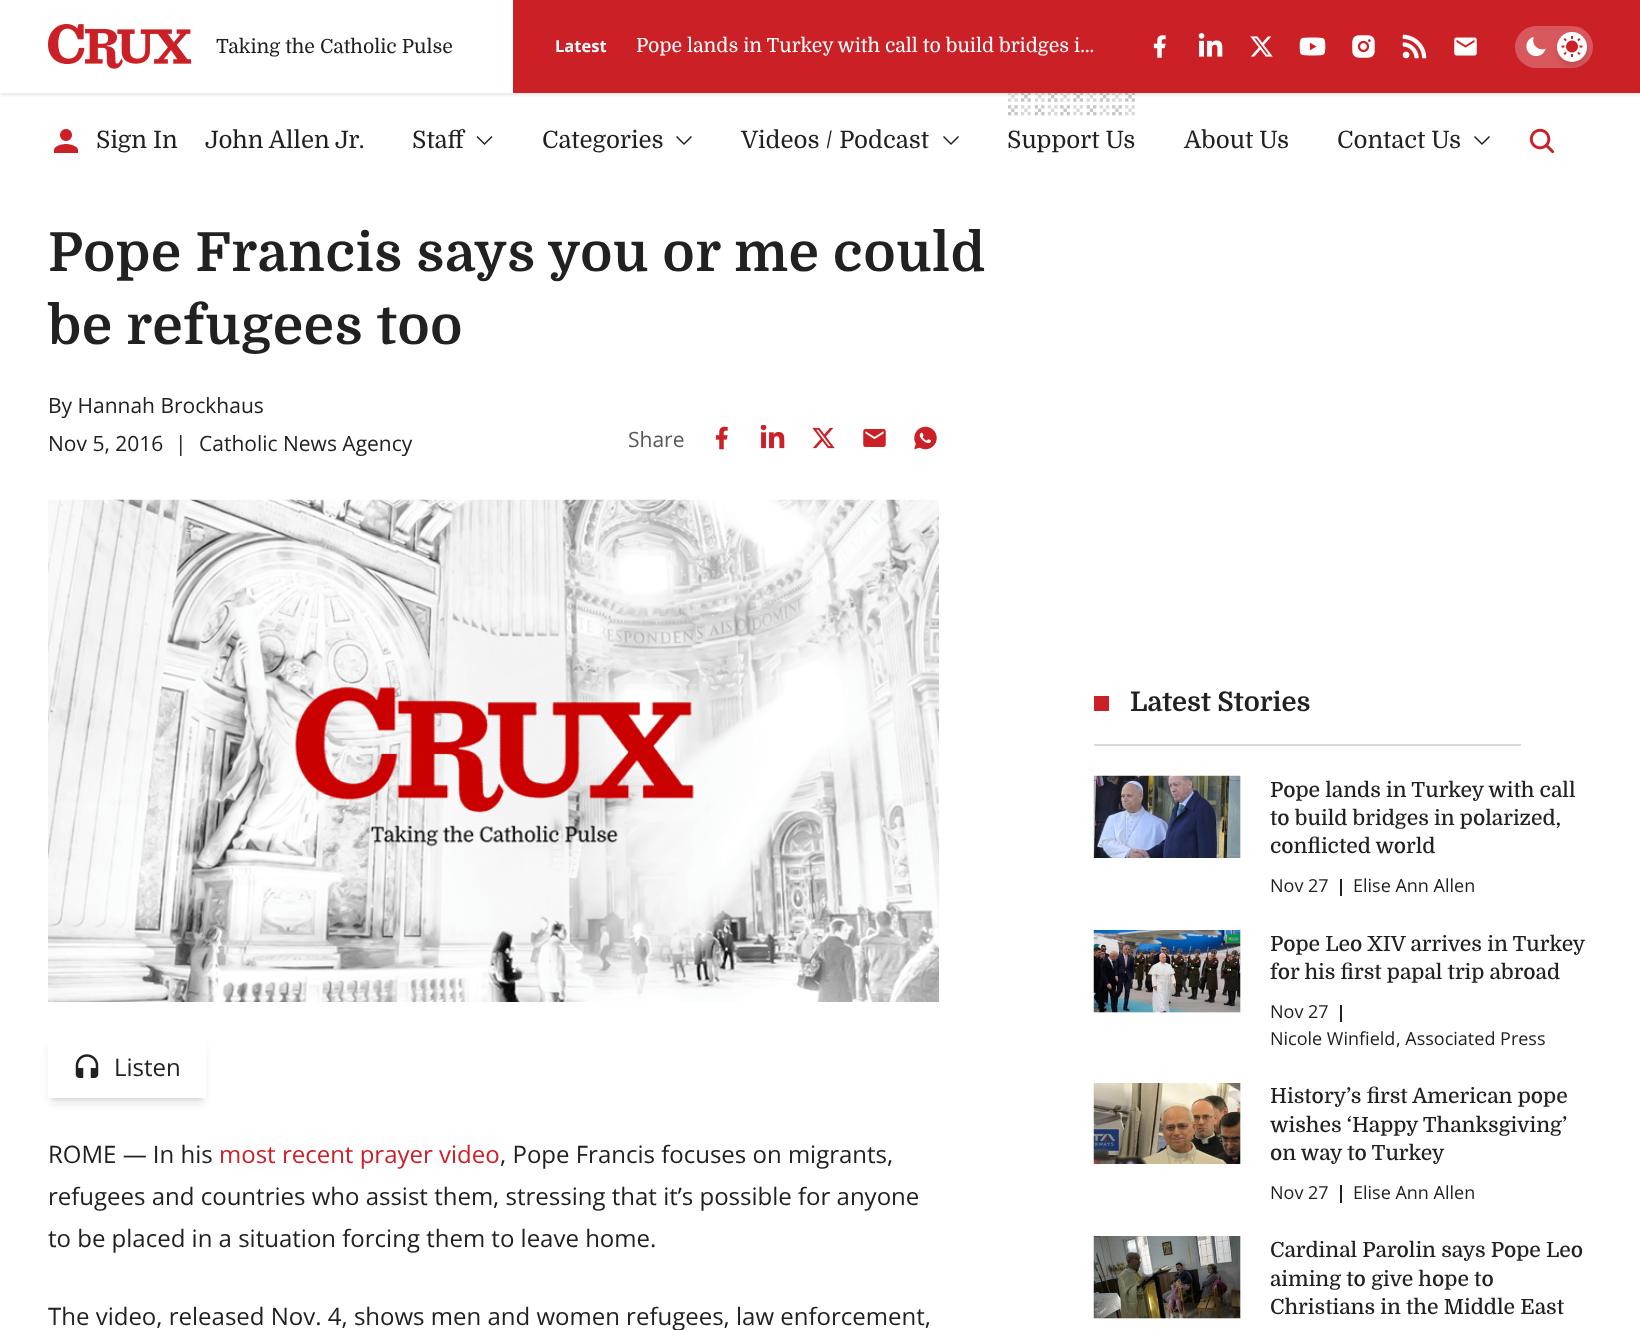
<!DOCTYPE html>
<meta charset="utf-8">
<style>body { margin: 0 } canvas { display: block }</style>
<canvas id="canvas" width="1640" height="1330"></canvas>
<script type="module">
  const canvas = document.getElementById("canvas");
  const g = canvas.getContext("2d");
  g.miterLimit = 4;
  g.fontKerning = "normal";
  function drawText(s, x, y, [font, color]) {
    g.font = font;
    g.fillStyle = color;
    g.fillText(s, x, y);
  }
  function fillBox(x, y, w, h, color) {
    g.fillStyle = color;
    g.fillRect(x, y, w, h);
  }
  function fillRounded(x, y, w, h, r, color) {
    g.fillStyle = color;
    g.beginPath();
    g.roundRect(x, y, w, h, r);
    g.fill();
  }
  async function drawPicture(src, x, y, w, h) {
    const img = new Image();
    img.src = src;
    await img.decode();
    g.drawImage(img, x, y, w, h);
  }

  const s1 = ["19.5px Domine", "#212121"];
  const s2 = ["bold 16.5px Open Sans", "#FFFFFF"];
  const s3 = ["19.5px Domine", "#FFFFFF"];
  const s4 = ["24px Domine", "#212121"];
  const s5 = ["bold 54px Domine", "#212121"];
  const s6 = ["21px Open Sans", "#212121"];
  const s7 = ["21px Open Sans", "#57595B"];
  const s8 = ["24px Open Sans", "#212121"];
  const s9 = ["24px Open Sans", "#CC2027"];
  const s10 = ["bold 27px Domine", "#212121"];
  const s11 = ["500 21px Domine", "#212121"];
  const s12 = ["18px Open Sans", "#212121"];

  fillBox(0, 0, 1640, 1330, "#FFFFFF");
  await drawPicture("pic12.png", 1008, 93, 127, 23);
  g.save();
  g.beginPath();
  g.rect(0, 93, 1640, 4);
  g.clip();
  g.fillStyle = "rgba(0, 0, 0, 0.1)";
  g.filter = "blur(2px)";
  g.beginPath();
  g.rect(0, 2, 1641, 93);
  g.fill();
  g.filter = "none";
  g.restore();
  await drawPicture("pic1.png", 48, 24, 144, 45);
  drawText("Taking the Catholic Pulse", 216, 53, s1);
  fillBox(513, 0, 1127, 93, "#CC2027");
  drawText("Latest", 555, 52, s2);
  drawText("Pope lands in Turkey with call to build bridges i…", 636, 52, s3);
  await drawPicture("pic2.png", 1153, 35, 13, 23);
  await drawPicture("pic3.png", 1198, 33, 25, 24);
  await drawPicture("pic4.png", 1250, 36, 23, 21);
  await drawPicture("pic5.png", 1299, 37, 27, 19);
  await drawPicture("pic6.png", 1352, 35, 23, 23);
  await drawPicture("pic7.png", 1402, 34, 25, 25);
  await drawPicture("pic8.png", 1454, 37, 23, 19);
  fillRounded(1515, 26, 78, 42, 21, "#D9585D");
  g.fillStyle = "rgba(0, 0, 0, 0.1)";
  g.filter = "blur(3px)";
  g.beginPath();
  g.roundRect(1560, 38, 24, 24, 12);
  g.fill();
  g.filter = "none";
  g.save();
  g.beginPath();
  g.rect(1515, 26, 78, 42);
  g.clip();
  g.filter = "blur(4.5px)";
  g.beginPath();
  g.roundRect(1559, 39, 27, 27, 13.5);
  g.fill();
  g.filter = "none";
  g.restore();
  g.fillStyle = "#FFFFFF";
  g.beginPath();
  g.arc(1572, 47, 15, 0, Math.PI * 2);
  g.fill();
  await drawPicture("pic9.png", 1526, 37, 20, 20);
  await drawPicture("pic10.png", 1561, 36, 22, 21);
  await drawPicture("pic11.png", 54, 129, 24, 24);
  drawText("Sign In", 96, 148, s4);
  drawText("John Allen Jr.", 205, 148, s4);
  drawText("Staff", 412, 148, s4);
  g.beginPath();
  g.moveTo(477, 136.5);
  g.lineTo(484.5, 144);
  g.lineTo(492, 136.5);
  g.strokeStyle = "#212121";
  g.lineWidth = 1.5;
  g.stroke();
  drawText("Categories", 542, 148, s4);
  g.beginPath();
  g.moveTo(676.5, 136.5);
  g.lineTo(684, 144);
  g.lineTo(691.5, 136.5);
  g.stroke();
  drawText("Videos / Podcast", 741, 148, s4);
  g.beginPath();
  g.moveTo(943.5, 136.5);
  g.lineTo(951, 144);
  g.lineTo(958.5, 136.5);
  g.stroke();
  drawText("Support Us", 1007, 148, s4);
  drawText("About Us", 1184, 148, s4);
  drawText("Contact Us", 1337, 148, s4);
  g.beginPath();
  g.moveTo(1474.5, 136.5);
  g.lineTo(1482, 144);
  g.lineTo(1489.5, 136.5);
  g.stroke();
  await drawPicture("pic13.png", 1529, 128, 26, 26);
  g.letterSpacing = "0.8px";
  drawText("Pope Francis says you or me could", 48, 271, s5);
  drawText("be refugees too", 48, 344, s5);
  g.letterSpacing = "0px";
  drawText("By Hannah Brockhaus", 48, 413, s6);
  drawText("Nov 5, 2016", 48, 451, s6);
  drawText("|", 175, 451, s6);
  drawText("Catholic News Agency", 199, 451, s6);
  drawText("Share", 628, 447, s7);
  await drawPicture("pic14.png", 715, 426, 13, 24);
  await drawPicture("pic15.png", 760, 425, 25, 24);
  await drawPicture("pic16.png", 812, 427, 23, 22);
  await drawPicture("pic17.png", 863, 429, 23, 18);
  await drawPicture("pic18.png", 914, 426, 23, 24);
  await drawPicture("pic19.png", 48, 499, 891, 503);
  g.save();
  g.beginPath();
  g.rect(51, 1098, 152, 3);
  g.clip();
  g.fillStyle = "rgba(0, 0, 0, 0.1)";
  g.filter = "blur(3px)";
  g.beginPath();
  g.rect(51, 1044, 152, 54);
  g.fill();
  g.filter = "none";
  g.restore();
  g.save();
  g.beginPath();
  g.moveTo(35, 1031);
  g.lineTo(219, 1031);
  g.lineTo(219, 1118);
  g.lineTo(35, 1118);
  g.closePath();
  g.moveTo(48, 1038);
  g.lineTo(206, 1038);
  g.lineTo(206, 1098);
  g.lineTo(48, 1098);
  g.closePath();
  g.clip("evenodd");
  g.fillStyle = "rgba(0, 0, 0, 0.1)";
  g.filter = "blur(4.5px)";
  g.beginPath();
  g.rect(50, 1046, 154, 57);
  g.fill();
  g.filter = "none";
  g.restore();
  await drawPicture("pic20.png", 75, 1054, 24, 24);
  drawText("Listen", 114, 1076, s8);
  drawText("ROME — In his", 48, 1163, s8);
  drawText("most recent prayer video", 219, 1163, s9);
  drawText(", Pope Francis focuses on migrants,", 500, 1163, s8);
  drawText("refugees and countries who assist them, stressing that it’s possible for anyone", 48, 1205, s8);
  drawText("to be placed in a situation forcing them to leave home.", 48, 1247, s8);
  drawText("The video, released Nov. 4, shows men and women refugees, law enforcement,", 48, 1325, s8);
  fillBox(1094, 744, 427, 2, "#D9D9D9");
  fillBox(1094, 696, 15, 15, "#CC2027");
  drawText("Latest Stories", 1130, 711, s10);
  fillBox(1240, 776, 1, 82, "#F2F3F3");
  await drawPicture("pic21.png", 1093, 775, 148, 83);
  drawText("Pope lands in Turkey with call", 1270, 797, s11);
  drawText("to build bridges in polarized,", 1270, 825, s11);
  drawText("conflicted world", 1270, 853, s11);
  drawText("Nov 27", 1270, 892, s12);
  fillBox(1340, 879, 2, 17, "#212121");
  drawText("Elise Ann Allen", 1353, 892, s12);
  fillBox(1094, 930, 147, 83, "#F2F3F3");
  await drawPicture("pic22.png", 1093, 930, 148, 83);
  drawText("Pope Leo XIV arrives in Turkey", 1270, 951, s11);
  drawText("for his first papal trip abroad", 1270, 979, s11);
  drawText("Nov 27", 1270, 1018, s12);
  fillBox(1340, 1005, 2, 17, "#212121");
  drawText("Nicole Winfield", 1270, 1045, s12);
  drawText(", Associated Press", 1396, 1045, s12);
  fillBox(1240, 1083, 1, 81, "#F2F3F3");
  await drawPicture("pic23.png", 1093, 1083, 148, 81);
  drawText("History’s first American pope", 1270, 1103, s11);
  drawText("wishes ‘Happy Thanksgiving’", 1270, 1132, s11);
  drawText("on way to Turkey", 1270, 1160, s11);
  drawText("Nov 27", 1270, 1199, s12);
  fillBox(1340, 1185, 2, 18, "#212121");
  drawText("Elise Ann Allen", 1353, 1199, s12);
  fillBox(1094, 1236, 147, 83, "#F2F3F3");
  await drawPicture("pic24.png", 1093, 1236, 148, 83);
  drawText("Cardinal Parolin says Pope Leo", 1270, 1257, s11);
  drawText("aiming to give hope to", 1270, 1286, s11);
  drawText("Christians in the Middle East", 1270, 1314, s11);
</script>
